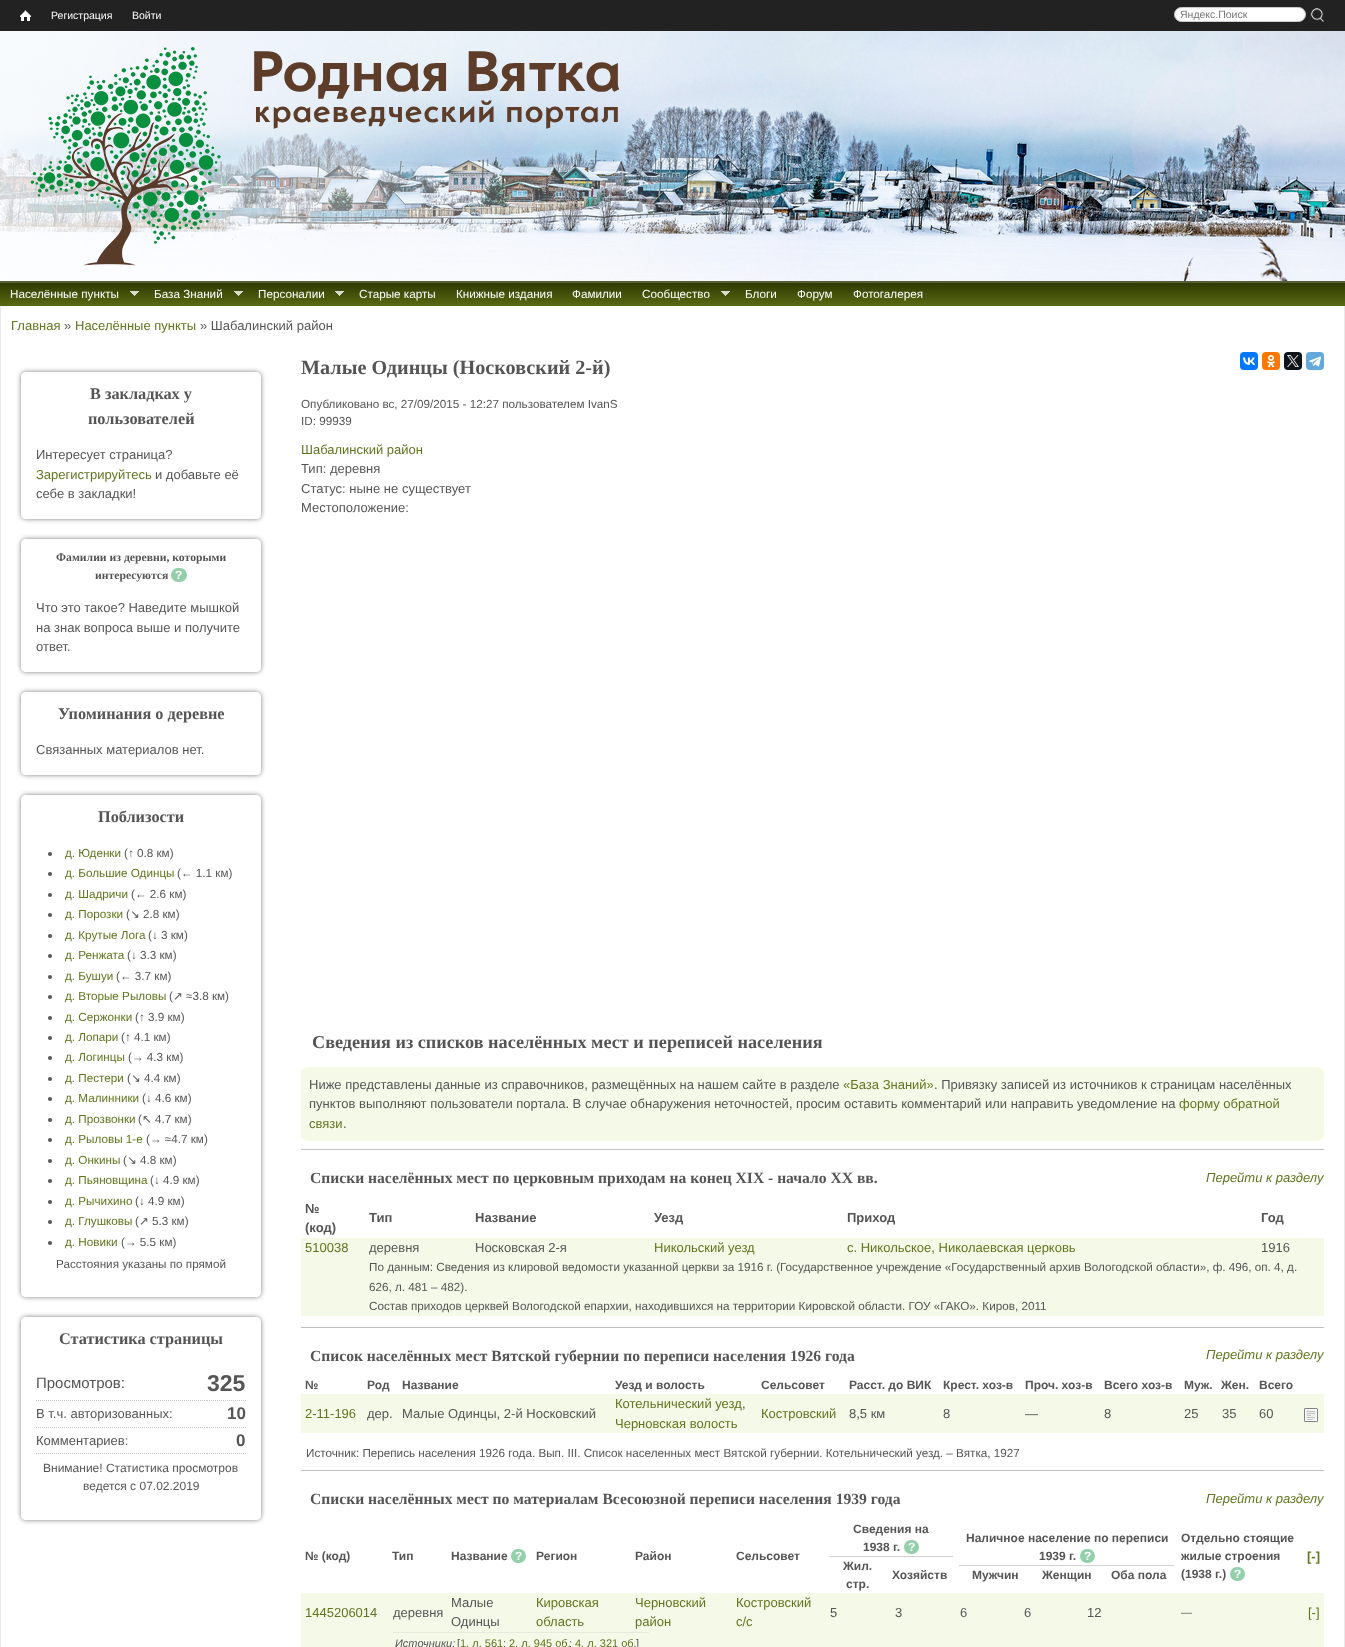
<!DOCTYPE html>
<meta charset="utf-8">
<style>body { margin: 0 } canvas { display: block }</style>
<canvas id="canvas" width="1345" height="1647"></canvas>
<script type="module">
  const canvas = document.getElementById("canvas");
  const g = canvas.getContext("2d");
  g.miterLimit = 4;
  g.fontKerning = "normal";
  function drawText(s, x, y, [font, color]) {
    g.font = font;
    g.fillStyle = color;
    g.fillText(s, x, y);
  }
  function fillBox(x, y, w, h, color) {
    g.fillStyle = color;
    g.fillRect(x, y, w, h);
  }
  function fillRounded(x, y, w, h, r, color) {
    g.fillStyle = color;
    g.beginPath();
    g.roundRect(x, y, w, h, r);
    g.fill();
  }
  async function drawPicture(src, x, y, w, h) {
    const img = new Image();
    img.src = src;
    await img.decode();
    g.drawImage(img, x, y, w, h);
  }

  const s1 = ["10.5px Liberation Sans", "#FFFFFF"];
  const s2 = ["10.5px Liberation Sans", "#757575"];
  const s3 = ["bold 60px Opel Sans", "#5D3D2A"];
  const s4 = ["bold 32px Opel Sans", "#5D3D2A"];
  const s5 = ["bold 13px Liberation Sans", "#FFFFFF"];
  const s6 = ["11.7px Liberation Sans", "#FFFFFF"];
  const s7 = ["13px Liberation Sans", "#61751F"];
  const s8 = ["13px Liberation Sans", "#555555"];
  const s9 = ["bold 16.25px Liberation Serif", "#555555"];
  const s10 = ["bold 11.7px Liberation Serif", "#555555"];
  const s11 = ["bold 12px Liberation Sans", "#FFFFFF"];
  const s12 = ["11.7px Liberation Sans", "#61751F"];
  const s13 = ["11.7px Liberation Sans", "#555555"];
  const s14 = ["11.7px DejaVu Sans", "#555555"];
  const s15 = ["15px Liberation Sans", "#555555"];
  const s16 = ["bold 23px Liberation Sans", "#555555"];
  const s17 = ["bold 17px Liberation Sans", "#555555"];
  const s18 = ["12px Liberation Sans", "#555555"];
  const s19 = ["bold 20.2px Liberation Serif", "#555555"];
  const s20 = ["bold 18.2px Liberation Serif", "#555555"];
  const s21 = ["bold 15.6px Liberation Serif", "#555555"];
  const s22 = ["italic 13px Liberation Sans", "#61751F"];
  const s23 = ["bold 13px Liberation Sans", "#555555"];
  const s24 = ["bold 12px Liberation Sans", "#555555"];
  const s25 = ["bold 13px Liberation Sans", "#61751F"];
  const s26 = ["11px Liberation Sans", "#555555"];
  const s27 = ["italic 11px Liberation Sans", "#555555"];
  const s28 = ["11px Liberation Sans", "#61751F"];

  fillBox(0, 0, 1345, 1647, "#FFFFFF");
  fillBox(0, 0, 1345, 31, "#222222");
  await drawPicture("pic1.png", 20, 10, 11, 11);
  drawText("Регистрация", 51, 19, s1);
  drawText("Войти", 132, 19, s1);
  g.beginPath();
  g.roundRect(1174.5, 7.5, 131, 14, 7);
  g.fill();
  g.strokeStyle = "#CCCCCC";
  g.stroke();
  drawText("Яндекс.Поиск", 1180, 18, s2);
  await drawPicture("pic2.png", 1310, 8, 14, 14);
  await drawPicture("pic3.png", 0, 31, 1345, 250);
  await drawPicture("pic4.png", 0, 31, 856, 250);
  await drawPicture("pic5.png", 30, 47, 191, 219);
  drawText("Родная Вятка", 250, 91, s3);
  g.letterSpacing = "1px";
  drawText("краеведческий портал", 254, 122, s4);
  g.letterSpacing = "0px";
  drawText("т", 1186, 273, s5);
  await drawPicture("pic6.png", 0, 281, 1345, 25);
  await drawPicture("pic7.png", 130, 291, 9, 5);
  drawText("Населённые пункты", 10, 298, s6);
  await drawPicture("pic7.png", 234, 291, 9, 5);
  drawText("База Знаний", 154, 298, s6);
  await drawPicture("pic7.png", 335, 291, 9, 5);
  drawText("Персоналии", 258, 298, s6);
  drawText("Старые карты", 359, 298, s6);
  drawText("Книжные издания", 456, 298, s6);
  drawText("Фамилии", 572, 298, s6);
  await drawPicture("pic7.png", 721, 291, 9, 5);
  drawText("Сообщество", 642, 298, s6);
  drawText("Блоги", 745, 298, s6);
  drawText("Форум", 797, 298, s6);
  drawText("Фотогалерея", 853, 298, s6);
  fillBox(1344, 306, 1, 1341, "#E9E9E9");
  fillBox(0, 306, 1, 1341, "#E9E9E9");
  drawText("Главная", 11, 330, s7);
  drawText("»", 64, 330, s8);
  drawText("Населённые пункты", 75, 330, s7);
  drawText("» Шабалинский район", 200, 330, s8);
  g.save();
  g.beginPath();
  g.moveTo(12, 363);
  g.lineTo(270, 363);
  g.lineTo(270, 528);
  g.lineTo(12, 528);
  g.closePath();
  g.moveTo(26, 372);
  g.lineTo(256, 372);
  g.bezierCurveTo(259, 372, 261, 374, 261, 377);
  g.lineTo(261, 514);
  g.bezierCurveTo(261, 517, 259, 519, 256, 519);
  g.lineTo(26, 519);
  g.bezierCurveTo(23, 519, 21, 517, 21, 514);
  g.lineTo(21, 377);
  g.bezierCurveTo(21, 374, 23, 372, 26, 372);
  g.closePath();
  g.clip("evenodd");
  g.fillStyle = "rgba(0, 0, 0, 0.5)";
  g.filter = "blur(2.5px)";
  g.beginPath();
  g.roundRect(21, 372, 240, 147, 5);
  g.fill();
  g.filter = "none";
  g.restore();
  drawText("В закладках у", 90, 399, s9);
  drawText("пользователей", 88, 424, s9);
  drawText("Интересует страница?", 36, 459, s8);
  drawText("Зарегистрируйтесь", 36, 479, s7);
  drawText("и добавьте её", 155, 479, s8);
  drawText("себе в закладки!", 36, 498, s8);
  g.save();
  g.beginPath();
  g.moveTo(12, 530);
  g.lineTo(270, 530);
  g.lineTo(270, 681);
  g.lineTo(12, 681);
  g.closePath();
  g.moveTo(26, 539);
  g.lineTo(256, 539);
  g.bezierCurveTo(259, 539, 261, 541, 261, 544);
  g.lineTo(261, 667);
  g.bezierCurveTo(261, 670, 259, 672, 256, 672);
  g.lineTo(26, 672);
  g.bezierCurveTo(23, 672, 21, 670, 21, 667);
  g.lineTo(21, 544);
  g.bezierCurveTo(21, 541, 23, 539, 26, 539);
  g.closePath();
  g.clip("evenodd");
  g.fillStyle = "rgba(0, 0, 0, 0.5)";
  g.filter = "blur(2.5px)";
  g.beginPath();
  g.roundRect(21, 539, 240, 133, 5);
  g.fill();
  g.filter = "none";
  g.restore();
  drawText("Фамилии из деревни, которыми", 56, 561, s10);
  drawText("интересуются", 95, 579, s10);
  fillRounded(171, 568, 16, 14, 7, "#92CFAA");
  drawText("?", 175, 579, s11);
  drawText("Что это такое? Наведите мышкой", 36, 612, s8);
  drawText("на знак вопроса выше и получите", 36, 632, s8);
  drawText("ответ.", 36, 651, s8);
  g.save();
  g.beginPath();
  g.moveTo(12, 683);
  g.lineTo(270, 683);
  g.lineTo(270, 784);
  g.lineTo(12, 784);
  g.closePath();
  g.moveTo(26, 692);
  g.lineTo(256, 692);
  g.bezierCurveTo(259, 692, 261, 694, 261, 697);
  g.lineTo(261, 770);
  g.bezierCurveTo(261, 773, 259, 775, 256, 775);
  g.lineTo(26, 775);
  g.bezierCurveTo(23, 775, 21, 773, 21, 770);
  g.lineTo(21, 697);
  g.bezierCurveTo(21, 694, 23, 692, 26, 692);
  g.closePath();
  g.clip("evenodd");
  g.fillStyle = "rgba(0, 0, 0, 0.5)";
  g.filter = "blur(2.5px)";
  g.beginPath();
  g.roundRect(21, 692, 240, 83, 5);
  g.fill();
  g.filter = "none";
  g.restore();
  drawText("Упоминания о деревне", 58, 719, s9);
  drawText("Связанных материалов нет.", 36, 754, s8);
  g.save();
  g.beginPath();
  g.moveTo(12, 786);
  g.lineTo(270, 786);
  g.lineTo(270, 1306);
  g.lineTo(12, 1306);
  g.closePath();
  g.moveTo(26, 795);
  g.lineTo(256, 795);
  g.bezierCurveTo(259, 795, 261, 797, 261, 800);
  g.lineTo(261, 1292);
  g.bezierCurveTo(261, 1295, 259, 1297, 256, 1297);
  g.lineTo(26, 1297);
  g.bezierCurveTo(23, 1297, 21, 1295, 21, 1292);
  g.lineTo(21, 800);
  g.bezierCurveTo(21, 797, 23, 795, 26, 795);
  g.closePath();
  g.clip("evenodd");
  g.fillStyle = "rgba(0, 0, 0, 0.5)";
  g.filter = "blur(2.5px)";
  g.beginPath();
  g.roundRect(21, 795, 240, 502, 5);
  g.fill();
  g.filter = "none";
  g.restore();
  drawText("Поблизости", 98, 822, s9);
  g.beginPath();
  g.arc(50, 854, 2, 0, Math.PI * 2);
  g.fill();
  drawText("д. Юденки", 65, 857, s12);
  drawText("(↑ 0.8 км)", 124, 857, s13);
  g.beginPath();
  g.arc(50, 874, 2, 0, Math.PI * 2);
  g.fill();
  drawText("д. Большие Одинцы", 65, 877, s12);
  drawText("(← 1.1 км)", 177, 877, s13);
  g.beginPath();
  g.arc(50, 895, 2, 0, Math.PI * 2);
  g.fill();
  drawText("д. Шадричи", 65, 898, s12);
  drawText("(← 2.6 км)", 131, 898, s13);
  g.beginPath();
  g.arc(50, 915, 2, 0, Math.PI * 2);
  g.fill();
  drawText("д. Порозки", 65, 918, s12);
  drawText("(", 126, 918, s13);
  drawText("↘", 130, 918, s14);
  drawText("2.8 км)", 143, 918, s13);
  g.beginPath();
  g.arc(50, 936, 2, 0, Math.PI * 2);
  g.fill();
  drawText("д. Крутые Лога", 65, 939, s12);
  drawText("(↓ 3 км)", 148, 939, s13);
  g.beginPath();
  g.arc(50, 956, 2, 0, Math.PI * 2);
  g.fill();
  drawText("д. Ренжата", 65, 959, s12);
  drawText("(↓ 3.3 км)", 127, 959, s13);
  g.beginPath();
  g.arc(50, 977, 2, 0, Math.PI * 2);
  g.fill();
  drawText("д. Бушуи", 65, 980, s12);
  drawText("(← 3.7 км)", 116, 980, s13);
  g.beginPath();
  g.arc(50, 997, 2, 0, Math.PI * 2);
  g.fill();
  drawText("д. Вторые Рыловы", 65, 1000, s12);
  drawText("(", 169, 1000, s13);
  drawText("↗", 173, 1000, s14);
  drawText("≈3.8 км)", 186, 1000, s13);
  g.beginPath();
  g.arc(50, 1018, 2, 0, Math.PI * 2);
  g.fill();
  drawText("д. Сержонки", 65, 1021, s12);
  drawText("(↑ 3.9 км)", 135, 1021, s13);
  g.beginPath();
  g.arc(50, 1038, 2, 0, Math.PI * 2);
  g.fill();
  drawText("д. Лопари", 65, 1041, s12);
  drawText("(↑ 4.1 км)", 121, 1041, s13);
  g.beginPath();
  g.arc(50, 1058, 2, 0, Math.PI * 2);
  g.fill();
  drawText("д. Логинцы", 65, 1061, s12);
  drawText("(→ 4.3 км)", 128, 1061, s13);
  g.beginPath();
  g.arc(50, 1079, 2, 0, Math.PI * 2);
  g.fill();
  drawText("д. Пестери", 65, 1082, s12);
  drawText("(", 127, 1082, s13);
  drawText("↘", 131, 1082, s14);
  drawText("4.4 км)", 144, 1082, s13);
  g.beginPath();
  g.arc(50, 1099, 2, 0, Math.PI * 2);
  g.fill();
  drawText("д. Малинники", 65, 1102, s12);
  drawText("(↓ 4.6 км)", 142, 1102, s13);
  g.beginPath();
  g.arc(50, 1120, 2, 0, Math.PI * 2);
  g.fill();
  drawText("д. Прозвонки", 65, 1123, s12);
  drawText("(", 138, 1123, s13);
  drawText("↖", 142, 1123, s14);
  drawText("4.7 км)", 155, 1123, s13);
  g.beginPath();
  g.arc(50, 1140, 2, 0, Math.PI * 2);
  g.fill();
  drawText("д. Рыловы 1-е", 65, 1143, s12);
  drawText("(→ ≈4.7 км)", 146, 1143, s13);
  g.beginPath();
  g.arc(50, 1161, 2, 0, Math.PI * 2);
  g.fill();
  drawText("д. Онкины", 65, 1164, s12);
  drawText("(", 123, 1164, s13);
  drawText("↘", 127, 1164, s14);
  drawText("4.8 км)", 140, 1164, s13);
  g.beginPath();
  g.arc(50, 1181, 2, 0, Math.PI * 2);
  g.fill();
  drawText("д. Пьяновщина", 65, 1184, s12);
  drawText("(↓ 4.9 км)", 150, 1184, s13);
  g.beginPath();
  g.arc(50, 1202, 2, 0, Math.PI * 2);
  g.fill();
  drawText("д. Рычихино", 65, 1205, s12);
  drawText("(↓ 4.9 км)", 135, 1205, s13);
  g.beginPath();
  g.arc(50, 1222, 2, 0, Math.PI * 2);
  g.fill();
  drawText("д. Глушковы", 65, 1225, s12);
  drawText("(", 135, 1225, s13);
  drawText("↗", 139, 1225, s14);
  drawText("5.3 км)", 152, 1225, s13);
  g.beginPath();
  g.arc(50, 1243, 2, 0, Math.PI * 2);
  g.fill();
  drawText("д. Новики", 65, 1246, s12);
  drawText("(→ 5.5 км)", 121, 1246, s13);
  drawText("Расстояния указаны по прямой", 56, 1268, s13);
  g.save();
  g.beginPath();
  g.moveTo(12, 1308);
  g.lineTo(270, 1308);
  g.lineTo(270, 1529);
  g.lineTo(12, 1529);
  g.closePath();
  g.moveTo(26, 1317);
  g.lineTo(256, 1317);
  g.bezierCurveTo(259, 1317, 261, 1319, 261, 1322);
  g.lineTo(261, 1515);
  g.bezierCurveTo(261, 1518, 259, 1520, 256, 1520);
  g.lineTo(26, 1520);
  g.bezierCurveTo(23, 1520, 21, 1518, 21, 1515);
  g.lineTo(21, 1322);
  g.bezierCurveTo(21, 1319, 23, 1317, 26, 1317);
  g.closePath();
  g.clip("evenodd");
  g.fillStyle = "rgba(0, 0, 0, 0.5)";
  g.filter = "blur(2.5px)";
  g.beginPath();
  g.roundRect(21, 1317, 240, 203, 5);
  g.fill();
  g.filter = "none";
  g.restore();
  drawText("Статистика страницы", 59, 1344, s9);
  g.beginPath();
  g.moveTo(36, 1400.5);
  g.lineTo(207, 1400.5);
  g.strokeStyle = "#C8C8C8";
  g.setLineDash([1, 1]);
  g.stroke();
  drawText("Просмотров:", 36, 1388, s15);
  g.beginPath();
  g.moveTo(207, 1400.5);
  g.lineTo(246, 1400.5);
  g.stroke();
  drawText("325", 207, 1391, s16);
  g.beginPath();
  g.moveTo(36, 1427.5);
  g.lineTo(207, 1427.5);
  g.stroke();
  drawText("В т.ч. авторизованных:", 36, 1418, s8);
  g.beginPath();
  g.moveTo(207, 1427.5);
  g.lineTo(246, 1427.5);
  g.stroke();
  drawText("10", 227, 1419, s17);
  g.beginPath();
  g.moveTo(36, 1453.5);
  g.lineTo(207, 1453.5);
  g.stroke();
  drawText("Комментариев:", 36, 1445, s8);
  g.beginPath();
  g.moveTo(207, 1453.5);
  g.lineTo(246, 1453.5);
  g.stroke();
  drawText("0", 236, 1446, s17);
  drawText("Внимание! Статистика просмотров", 43, 1472, s18);
  drawText("ведется с 07.02.2019", 83, 1490, s18);
  drawText("Малые Одинцы (Носковский 2-й)", 301, 374, s19);
  fillRounded(1240, 352, 18, 18, 4, "#0077FF");
  await drawPicture("pic8.png", 1243, 357, 12, 8);
  fillRounded(1262, 352, 18, 18, 4, "#FF7700");
  await drawPicture("pic9.png", 1267, 355, 8, 12);
  fillRounded(1284, 352, 18, 18, 4, "#0F1419");
  await drawPicture("pic10.png", 1287, 355, 12, 12);
  fillRounded(1306, 352, 18, 18, 4, "#64A9DC");
  await drawPicture("pic11.png", 1309, 356, 12, 11);
  drawText("Опубликовано вс, 27/09/2015 - 12:27 пользователем IvanS", 301, 408, s13);
  drawText("ID: 99939", 301, 425, s13);
  drawText("Шабалинский район", 301, 454, s7);
  drawText("Тип: деревня", 301, 473, s8);
  drawText("Статус: ныне не существует", 301, 493, s8);
  drawText("Местоположение:", 301, 512, s8);
  drawText("Сведения из списков населённых мест и переписей населения", 312, 1048, s20);
  fillRounded(301, 1067, 1023, 74, 7, "#F5F9E8");
  drawText("Ниже представлены данные из справочников, размещённых на нашем сайте в разделе", 309, 1089, s8);
  drawText("«База Знаний»", 843, 1089, s7);
  drawText(". Привязку записей из источников к страницам населённых", 934, 1089, s8);
  drawText("пунктов выполняют пользователи портала. В случае обнаружения неточностей, просим оставить комментарий или направить уведомление на", 309, 1108, s8);
  drawText("форму обратной", 1179, 1108, s7);
  drawText("связи", 309, 1128, s7);
  drawText(".", 343, 1128, s8);
  fillBox(301, 1149, 1023, 1, "#C0C0C0");
  drawText("Списки населённых мест по церковным приходам на конец XIX - начало XX вв.", 310, 1183, s21);
  drawText("Перейти к разделу", 1206, 1182, s22);
  drawText("№", 305, 1213, s23);
  drawText("(код)", 305, 1232, s23);
  drawText("Тип", 369, 1222, s23);
  drawText("Название", 475, 1222, s23);
  drawText("Уезд", 654, 1222, s23);
  drawText("Приход", 847, 1222, s23);
  drawText("Год", 1261, 1222, s23);
  fillBox(301, 1238, 1023, 78, "#F5F9E8");
  drawText("510038", 305, 1252, s7);
  drawText("деревня", 369, 1252, s8);
  drawText("Носковская 2-я", 475, 1252, s8);
  drawText("Никольский уезд", 654, 1252, s7);
  drawText("с. Никольское, Николаевская церковь", 847, 1252, s7);
  drawText("1916", 1261, 1252, s8);
  drawText("По данным: Сведения из клировой ведомости указанной церкви за 1916 г. (Государственное учреждение «Государственный архив Вологодской области», ф. 496, оп. 4, д.", 369, 1271, s13);
  drawText("626, л. 481 – 482).", 369, 1291, s13);
  drawText("Состав приходов церквей Вологодской епархии, находившихся на территории Кировской области. ГОУ «ГАКО». Киров, 2011", 369, 1310, s13);
  fillBox(301, 1327, 1023, 1, "#C0C0C0");
  drawText("Список населённых мест Вятской губернии по переписи населения 1926 года", 310, 1361, s21);
  drawText("Перейти к разделу", 1206, 1359, s22);
  drawText("№", 305, 1389, s24);
  drawText("Род", 367, 1389, s24);
  drawText("Название", 402, 1389, s24);
  drawText("Уезд и волость", 615, 1389, s24);
  drawText("Сельсовет", 761, 1389, s24);
  drawText("Расст. до ВИК", 849, 1389, s24);
  drawText("Крест. хоз-в", 943, 1389, s24);
  drawText("Проч. хоз-в", 1025, 1389, s24);
  drawText("Всего хоз-в", 1104, 1389, s24);
  drawText("Муж.", 1184, 1389, s24);
  drawText("Жен.", 1221, 1389, s24);
  drawText("Всего", 1259, 1389, s24);
  fillBox(301, 1394, 1023, 39, "#F5F9E8");
  drawText("2-11-196", 305, 1418, s7);
  drawText("дер.", 367, 1418, s8);
  drawText("Малые Одинцы, 2-й Носковский", 402, 1418, s8);
  drawText("Котельнический уезд", 615, 1408, s7);
  drawText(",", 742, 1408, s8);
  drawText("Черновская волость", 615, 1428, s7);
  drawText("Костровский", 761, 1418, s7);
  drawText("8,5 км", 849, 1418, s8);
  drawText("8", 943, 1418, s8);
  drawText("—", 1025, 1418, s8);
  drawText("8", 1104, 1418, s8);
  drawText("25", 1184, 1418, s8);
  drawText("35", 1222, 1418, s8);
  drawText("60", 1259, 1418, s8);
  await drawPicture("pic12.png", 1304, 1408, 14, 14);
  drawText("Источник: Перепись населения 1926 года. Вып. III. Список населенных мест Вятской губернии. Котельнический уезд. – Вятка, 1927", 306, 1457, s13);
  fillBox(301, 1470, 1023, 1, "#C0C0C0");
  drawText("Списки населённых мест по материалам Всесоюзной переписи населения 1939 года", 310, 1504, s21);
  drawText("Перейти к разделу", 1206, 1503, s22);
  drawText("№ (код)", 305, 1560, s24);
  drawText("Тип", 392, 1560, s24);
  drawText("Название", 451, 1560, s24);
  fillRounded(511, 1549, 15, 14, 7, "#92CFAA");
  drawText("?", 515, 1560, s11);
  drawText("Регион", 536, 1560, s24);
  drawText("Район", 635, 1560, s24);
  drawText("Сельсовет", 736, 1560, s24);
  fillBox(829, 1556, 124, 1, "#D3D3D3");
  drawText("Сведения на", 853, 1533, s24);
  drawText("1938 г.", 863, 1551, s24);
  fillRounded(904, 1540, 15, 14, 7, "#92CFAA");
  drawText("?", 908, 1551, s11);
  drawText("Жил.", 843, 1570, s24);
  drawText("стр.", 846, 1588, s24);
  drawText("Хозяйств", 892, 1579, s24);
  fillBox(959, 1565, 215, 1, "#D3D3D3");
  drawText("Наличное население по переписи", 966, 1542, s24);
  drawText("1939 г.", 1039, 1560, s24);
  fillRounded(1080, 1549, 15, 14, 7, "#92CFAA");
  drawText("?", 1084, 1560, s11);
  drawText("Мужчин", 972, 1579, s24);
  drawText("Женщин", 1042, 1579, s24);
  drawText("Оба пола", 1111, 1579, s24);
  drawText("Отдельно стоящие", 1181, 1542, s24);
  drawText("жилые строения", 1181, 1560, s24);
  drawText("(1938 г.)", 1181, 1578, s24);
  fillRounded(1230, 1567, 15, 14, 7, "#92CFAA");
  drawText("?", 1234, 1578, s11);
  drawText("[-]", 1307, 1561, s25);
  fillBox(301, 1593, 1023, 54, "#F5F9E8");
  drawText("1445206014", 305, 1617, s7);
  drawText("деревня", 393, 1617, s8);
  drawText("Малые", 451, 1607, s8);
  drawText("Одинцы", 451, 1626, s8);
  drawText("Кировская", 536, 1607, s7);
  drawText("область", 536, 1626, s7);
  drawText("Черновский", 635, 1607, s7);
  drawText("район", 635, 1626, s7);
  drawText("Костровский", 736, 1607, s7);
  drawText("с/с", 736, 1626, s7);
  drawText("5", 830, 1617, s8);
  drawText("3", 895, 1617, s8);
  drawText("6", 960, 1617, s8);
  drawText("6", 1024, 1617, s8);
  drawText("12", 1087, 1617, s8);
  drawText("—", 1181, 1616, s26);
  drawText("[-]", 1308, 1617, s7);
  fillBox(393, 1632, 256, 1, "#E8EBDC");
  drawText("Источники:", 395, 1647, s27);
  drawText("[", 457, 1647, s26);
  drawText("1, л. 561", 460, 1647, s28);
  drawText(";", 503, 1647, s26);
  drawText("2, л. 945 об.", 509, 1647, s28);
  drawText(";", 569, 1647, s26);
  drawText("4, л. 321 об.", 575, 1647, s28);
  drawText("]", 636, 1647, s26);
</script>
